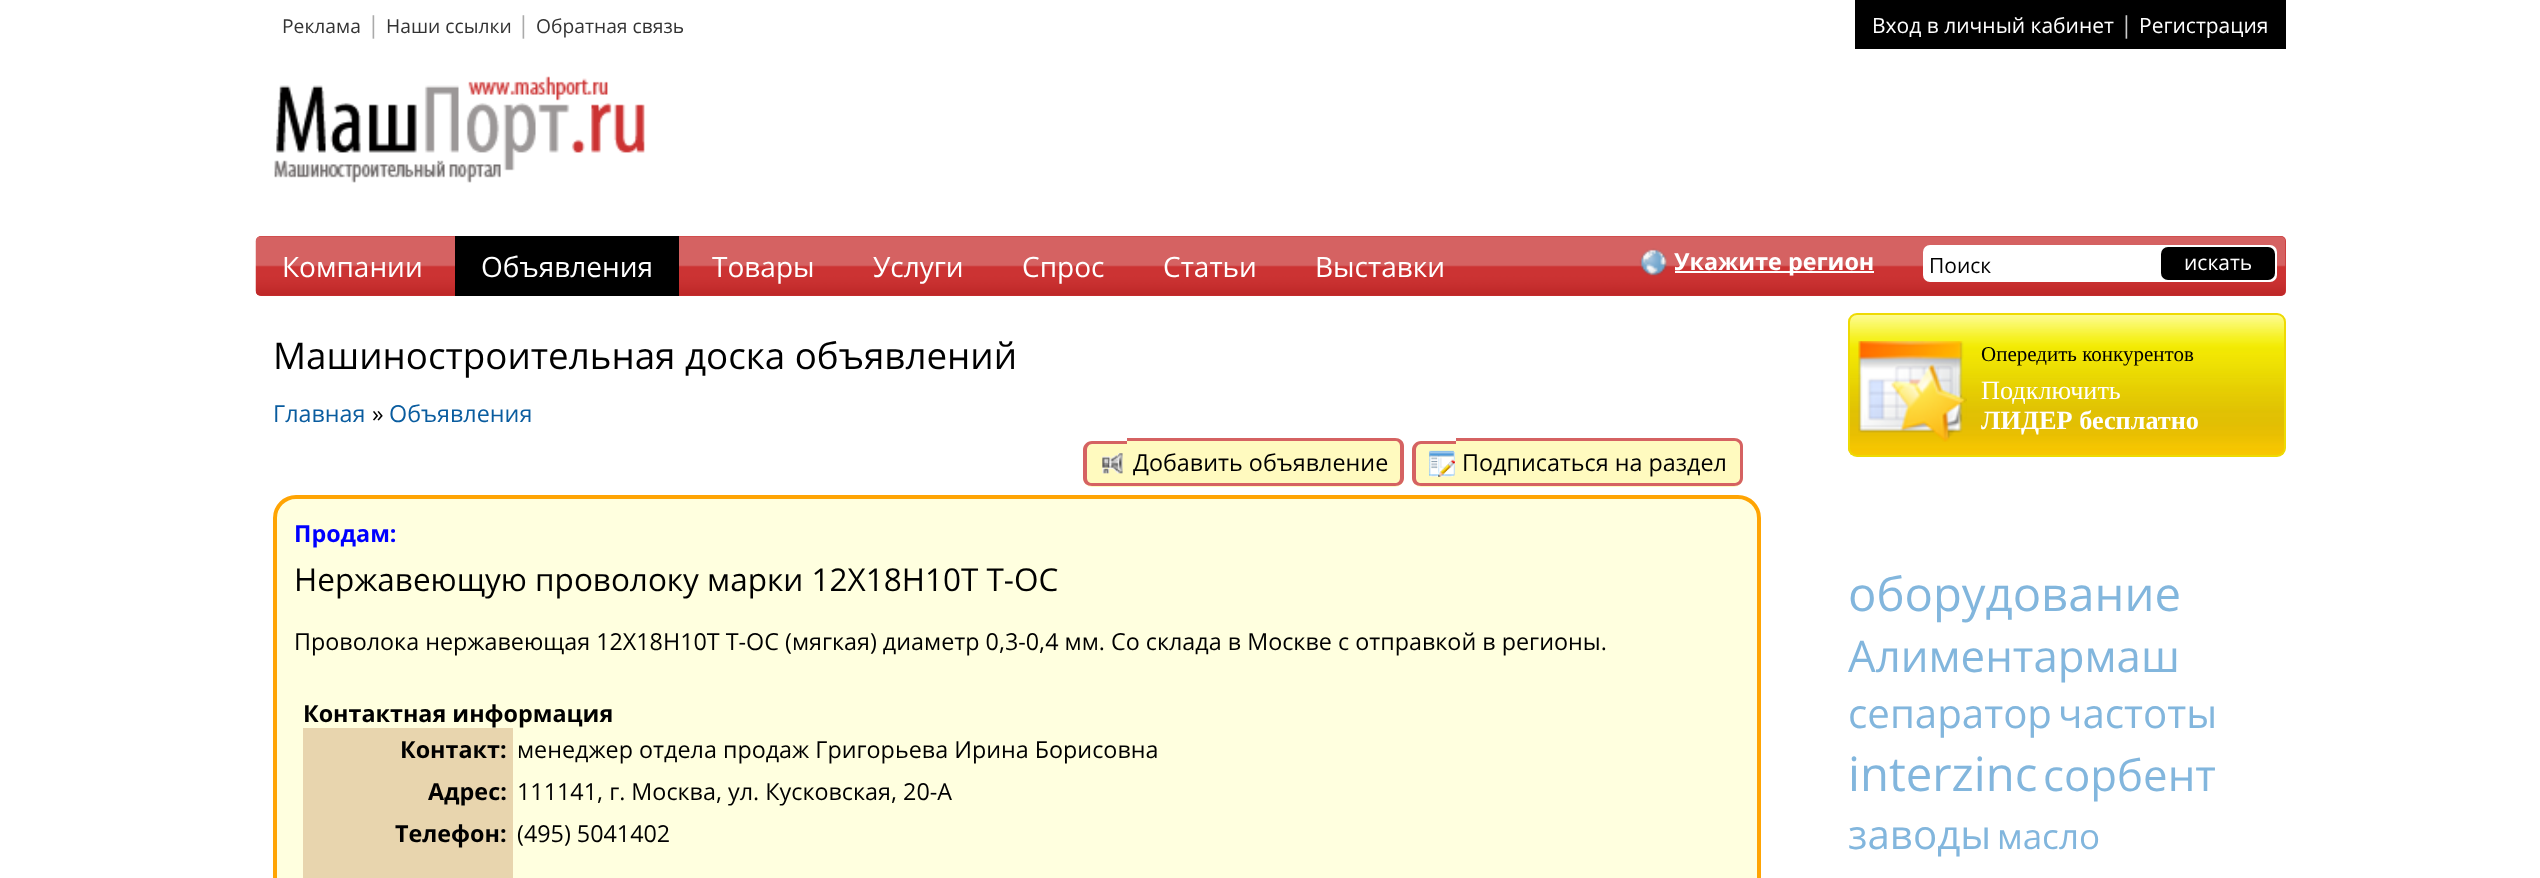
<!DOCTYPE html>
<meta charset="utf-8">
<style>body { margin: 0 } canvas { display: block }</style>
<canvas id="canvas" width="2540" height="878"></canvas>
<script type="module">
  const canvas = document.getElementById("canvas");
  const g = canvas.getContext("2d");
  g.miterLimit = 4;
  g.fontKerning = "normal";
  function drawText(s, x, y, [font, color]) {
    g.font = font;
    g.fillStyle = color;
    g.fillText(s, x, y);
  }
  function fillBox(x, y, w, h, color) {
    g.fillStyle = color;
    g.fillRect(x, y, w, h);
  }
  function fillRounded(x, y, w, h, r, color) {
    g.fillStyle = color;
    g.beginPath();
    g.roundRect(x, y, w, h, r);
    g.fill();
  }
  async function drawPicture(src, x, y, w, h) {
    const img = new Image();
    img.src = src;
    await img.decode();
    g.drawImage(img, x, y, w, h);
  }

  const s1 = ["19.25px Open Sans", "#333333"];
  const s2 = ["23.33px Open Sans", "#AAAAAA"];
  const s3 = ["21px Open Sans", "#FFFFFF"];
  const s4 = ["23.33px Open Sans", "#CCCCCC"];
  const s5 = ["28px Open Sans", "#FFFFFF"];
  const s6 = ["bold 23.33px Open Sans", "#FFFFFF"];
  const s7 = ["21px Open Sans", "#000000"];
  const s8 = ["36.75px Open Sans", "#000000"];
  const s9 = ["23.33px Open Sans", "#095C9F"];
  const s10 = ["23.33px Open Sans", "#000000"];
  const s11 = ["bold 23.33px Open Sans", "#0000FF"];
  const s12 = ["31.5px Open Sans", "#000000"];
  const s13 = ["bold 23.33px Open Sans", "#000000"];
  const s14 = ["21px Liberation Serif", "#000000"];
  const s15 = ["26.25px Liberation Serif", "#FFFFFF"];
  const s16 = ["bold 26.25px Liberation Serif", "#FFFFFF"];
  const s17 = ["47.25px Open Sans", "#82B6DD"];
  const s18 = ["43.75px Open Sans", "#82B6DD"];
  const s19 = ["40.25px Open Sans", "#82B6DD"];
  const s20 = ["35px Open Sans", "#82B6DD"];

  fillBox(0, 0, 2540, 878, "#FFFFFF");
  drawText("Реклама", 282, 33, s1);
  drawText("|", 367, 33, s2);
  drawText("Наши ссылки", 386, 33, s1);
  drawText("|", 517, 33, s2);
  drawText("Обратная связь", 536, 33, s1);
  fillBox(1855, 0, 431, 49, "#000000");
  drawText("Вход в личный кабинет", 1872, 33, s3);
  drawText("|", 2120, 33, s4);
  drawText("Регистрация", 2139, 33, s3);
  await drawPicture("pic1.png", 274, 76, 371, 107);
  fillRounded(256, 236, 2030, 60, 5, "#CC3333");
  await drawPicture("pic2.png", 255, 236, 2031, 60);
  drawText("Компании", 282, 277, s5);
  fillBox(455, 236, 224, 60, "#000000");
  drawText("Объявления", 481, 277, s5);
  drawText("Товары", 712, 277, s5);
  drawText("Услуги", 873, 277, s5);
  drawText("Спрос", 1022, 277, s5);
  drawText("Статьи", 1163, 277, s5);
  drawText("Выставки", 1315, 277, s5);
  await drawPicture("pic3.png", 1639, 248, 28, 28);
  fillBox(1675, 271, 199, 2, "#FFFFFF");
  drawText("Укажите регион", 1674, 270, s6);
  fillRounded(1923, 245, 354, 37, 7, "#FFFFFF");
  drawText("Поиск", 1929, 273, s7);
  fillRounded(2161, 247, 114, 33, 7, "#000000");
  drawText("искать", 2184, 270, s3);
  drawText("Машиностроительная доска объявлений", 273, 369, s8);
  drawText("Главная", 273, 422, s9);
  drawText("»", 372, 422, s10);
  drawText("Объявления", 389, 422, s9);
  g.fillStyle = "#FFFABF";
  g.beginPath();
  g.roundRect(1083, 441, 44, 46, [9, 0, 0, 9]);
  g.fill();
  g.fillStyle = "#D56262";
  g.beginPath();
  g.moveTo(1092, 441);
  g.lineTo(1127, 441);
  g.lineTo(1127, 486);
  g.lineTo(1092, 486);
  g.bezierCurveTo(1087, 486, 1083, 483, 1083, 478);
  g.lineTo(1083, 450);
  g.bezierCurveTo(1083, 445, 1087, 441, 1092, 441);
  g.closePath();
  g.moveTo(1092, 444);
  g.lineTo(1127, 444);
  g.lineTo(1127, 483);
  g.lineTo(1092, 483);
  g.bezierCurveTo(1089, 483, 1087, 481, 1087, 478);
  g.lineTo(1087, 450);
  g.bezierCurveTo(1087, 447, 1089, 444, 1092, 444);
  g.closePath();
  g.fill("evenodd");
  await drawPicture("pic4.png", 1102, 453, 21, 21);
  g.fillStyle = "#FFFABF";
  g.beginPath();
  g.roundRect(1127, 438, 277, 49, [0, 9, 9, 0]);
  g.fill();
  g.fillStyle = "#D56262";
  g.beginPath();
  g.moveTo(1127, 438);
  g.lineTo(1395, 438);
  g.bezierCurveTo(1400, 438, 1404, 441, 1404, 446);
  g.lineTo(1404, 478);
  g.bezierCurveTo(1404, 483, 1400, 486, 1395, 486);
  g.lineTo(1127, 486);
  g.closePath();
  g.moveTo(1127, 441);
  g.lineTo(1395, 441);
  g.bezierCurveTo(1398, 441, 1400, 443, 1400, 446);
  g.lineTo(1400, 478);
  g.bezierCurveTo(1400, 481, 1398, 483, 1395, 483);
  g.lineTo(1127, 483);
  g.closePath();
  g.fill("evenodd");
  drawText("Добавить объявление", 1133, 471, s10);
  g.fillStyle = "#FFFABF";
  g.beginPath();
  g.roundRect(1412, 441, 44, 46, [9, 0, 0, 9]);
  g.fill();
  g.fillStyle = "#D56262";
  g.beginPath();
  g.moveTo(1421, 441);
  g.lineTo(1456, 441);
  g.lineTo(1456, 486);
  g.lineTo(1421, 486);
  g.bezierCurveTo(1416, 486, 1412, 483, 1412, 478);
  g.lineTo(1412, 450);
  g.bezierCurveTo(1412, 445, 1416, 441, 1421, 441);
  g.closePath();
  g.moveTo(1421, 444);
  g.lineTo(1456, 444);
  g.lineTo(1456, 483);
  g.lineTo(1421, 483);
  g.bezierCurveTo(1418, 483, 1416, 481, 1416, 478);
  g.lineTo(1416, 450);
  g.bezierCurveTo(1416, 447, 1418, 444, 1421, 444);
  g.closePath();
  g.fill("evenodd");
  await drawPicture("pic5.png", 1429, 450, 27, 27);
  g.fillStyle = "#FFFABF";
  g.beginPath();
  g.roundRect(1456, 438, 287, 49, [0, 9, 9, 0]);
  g.fill();
  g.fillStyle = "#D56262";
  g.beginPath();
  g.moveTo(1456, 438);
  g.lineTo(1734, 438);
  g.bezierCurveTo(1739, 438, 1743, 441, 1743, 446);
  g.lineTo(1743, 478);
  g.bezierCurveTo(1743, 483, 1739, 486, 1734, 486);
  g.lineTo(1456, 486);
  g.closePath();
  g.moveTo(1456, 441);
  g.lineTo(1734, 441);
  g.bezierCurveTo(1737, 441, 1740, 443, 1740, 446);
  g.lineTo(1740, 478);
  g.bezierCurveTo(1740, 481, 1737, 483, 1734, 483);
  g.lineTo(1456, 483);
  g.closePath();
  g.fill("evenodd");
  drawText("Подписаться на раздел", 1462, 471, s10);
  g.fillStyle = "#FFFFDF";
  g.beginPath();
  g.roundRect(275, 497, 1484, 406, 21);
  g.fill();
  g.strokeStyle = "#FFA403";
  g.lineWidth = 4;
  g.stroke();
  drawText("Продам:", 294, 542, s11);
  drawText("Нержавеющую проволоку марки 12Х18Н10Т Т-ОС", 294, 591, s12);
  drawText("Проволока нержавеющая 12Х18Н10Т Т-ОС (мягкая) диаметр 0,3-0,4 мм. Со склада в Москве с отправкой в регионы.", 294, 650, s10);
  drawText("Контактная информация", 303, 722, s13);
  fillBox(303, 728, 210, 150, "#E8D5AE");
  drawText("Контакт:", 400, 758, s13);
  drawText("менеджер отдела продаж Григорьева Ирина Борисовна", 517, 758, s10);
  drawText("Адрес:", 428, 800, s13);
  drawText("111141, г. Москва, ул. Кусковская, 20-А", 517, 800, s10);
  drawText("Телефон:", 395, 842, s13);
  drawText("(495) 5041402", 517, 842, s10);
  await drawPicture("pic6.png", 1848, 313, 438, 142);
  g.beginPath();
  g.roundRect(1849, 314, 436, 142, 8);
  g.strokeStyle = "#EEDA03";
  g.lineWidth = 2;
  g.stroke();
  await drawPicture("pic7.png", 1858, 341, 109, 101);
  drawText("Опередить конкурентов", 1981, 361, s14);
  drawText("Подключить", 1981, 399, s15);
  drawText("ЛИДЕР бесплатно", 1981, 429, s16);
  drawText("оборудование", 1848, 611, s17);
  drawText("Алиментармаш", 1848, 672, s18);
  drawText("сепаратор", 1848, 728, s19);
  drawText("частоты", 2058, 728, s19);
  drawText("interzinc", 1848, 791, s17);
  drawText("сорбент", 2043, 791, s18);
  drawText("заводы", 1848, 849, s19);
  drawText("масло", 1997, 849, s20);
</script>
